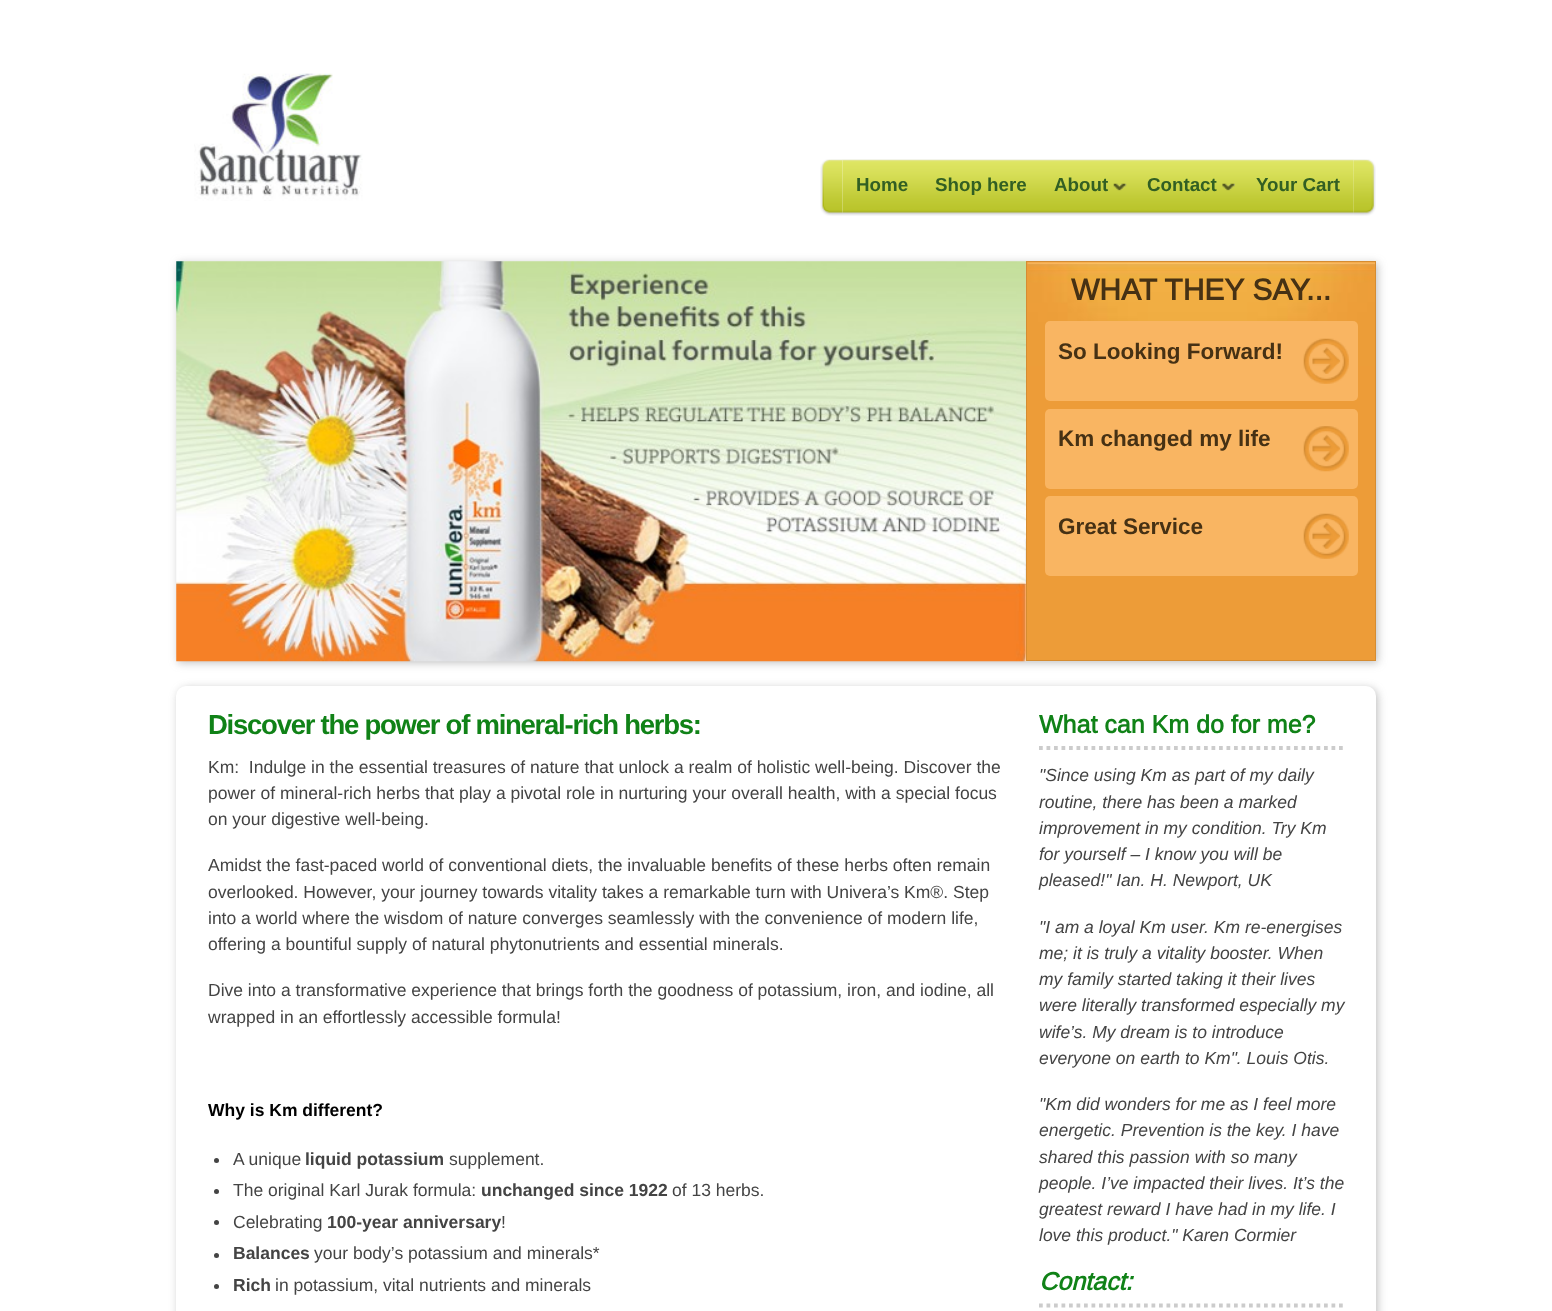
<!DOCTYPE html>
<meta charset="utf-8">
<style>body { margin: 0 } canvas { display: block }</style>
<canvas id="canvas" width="1552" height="1311"></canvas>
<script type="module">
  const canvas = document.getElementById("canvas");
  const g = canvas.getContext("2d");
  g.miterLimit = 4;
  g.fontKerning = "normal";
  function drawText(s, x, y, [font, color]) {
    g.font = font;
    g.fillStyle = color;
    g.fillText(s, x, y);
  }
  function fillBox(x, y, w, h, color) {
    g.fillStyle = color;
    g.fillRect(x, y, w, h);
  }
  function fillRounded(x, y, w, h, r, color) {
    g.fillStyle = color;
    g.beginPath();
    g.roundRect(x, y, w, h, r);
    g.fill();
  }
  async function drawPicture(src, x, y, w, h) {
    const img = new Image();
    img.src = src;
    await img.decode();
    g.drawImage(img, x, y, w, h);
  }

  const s1 = ["bold 18.75px Liberation Sans", "#325F23"];
  const s2 = ["bold 30px Arimo", "#463114"];
  const s3 = ["bold 22.5px Liberation Sans", "#463114"];
  const s4 = ["bold 27.5px Liberation Sans", "#108217"];
  const s5 = ["17.5px Liberation Sans", "#444444"];
  const s6 = ["bold 17.5px Liberation Sans", "#000000"];
  const s7 = ["bold 17.5px Liberation Sans", "#444444"];
  const s8 = ["bold 25px Arimo", "#108217"];
  const s9 = ["italic 17.5px Liberation Sans", "#444444"];
  const s10 = ["italic bold 25px Arimo", "#108217"];

  fillBox(0, 0, 1552, 1311, "#FFFFFF");
  await drawPicture("pic1.png", 194, 73, 169, 128);
  await drawPicture("pic2.png", 820, 159, 23, 57);
  await drawPicture("pic3.png", 842, 159, 512, 57);
  drawText("Home", 856, 191, s1);
  drawText("Shop here", 935, 191, s1);
  drawText("About", 1054, 191, s1);
  await drawPicture("pic4.png", 1113, 183, 14, 8);
  drawText("Contact", 1147, 191, s1);
  await drawPicture("pic5.png", 1222, 183, 13, 8);
  drawText("Your Cart", 1256, 191, s1);
  await drawPicture("pic6.png", 1353, 159, 23, 57);
  g.fillStyle = "rgba(102, 102, 102, 0.4)";
  g.filter = "blur(4px)";
  g.beginPath();
  g.rect(178, 263, 1200, 400);
  g.fill();
  g.filter = "none";
  await drawPicture("pic7.png", 176, 261, 851, 401);
  fillBox(1027, 262, 348, 398, "#ED9C38");
  await drawPicture("pic8.png", 1027, 262, 348, 104);
  g.strokeStyle = "#D58C32";
  g.strokeRect(1026.5, 261.5, 349, 399);
  drawText("WHAT THEY SAY...", 1071, 300, s2);
  fillRounded(1045, 321, 313, 80, 5, "#F9B562");
  drawText("So Looking Forward!", 1058, 359, s3);
  await drawPicture("pic9.png", 1303, 338, 46, 46);
  fillRounded(1045, 409, 313, 80, 5, "#F9B562");
  drawText("Km changed my life", 1058, 446, s3);
  await drawPicture("pic10.png", 1303, 426, 46, 46);
  fillRounded(1045, 496, 313, 80, 5, "#F9B562");
  drawText("Great Service", 1058, 534, s3);
  await drawPicture("pic9.png", 1303, 513, 46, 46);
  g.fillStyle = "rgba(102, 102, 102, 0.4)";
  g.filter = "blur(4px)";
  g.beginPath();
  g.roundRect(178, 688, 1200, 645, 10);
  g.fill();
  g.filter = "none";
  g.fillStyle = "#FFFFFF";
  g.beginPath();
  g.roundRect(176, 686, 1200, 625, [10, 10, 0, 0]);
  g.fill();
  g.letterSpacing = "-1.25px";
  drawText("Discover the power of mineral-rich herbs:", 208, 734, s4);
  g.letterSpacing = "0px";
  drawText("Km:  Indulge in the essential treasures of nature that unlock a realm of holistic well-being. Discover the", 208, 773, s5);
  drawText("power of mineral-rich herbs that play a pivotal role in nurturing your overall health, with a special focus", 208, 799, s5);
  drawText("on your digestive well-being.", 208, 825, s5);
  drawText("Amidst the fast-paced world of conventional diets, the invaluable benefits of these herbs often remain", 208, 871, s5);
  drawText("overlooked. However, your journey towards vitality takes a remarkable turn with Univera’s Km®. Step", 208, 898, s5);
  drawText("into a world where the wisdom of nature converges seamlessly with the convenience of modern life,", 208, 924, s5);
  drawText("offering a bountiful supply of natural phytonutrients and essential minerals.", 208, 950, s5);
  drawText("Dive into a transformative experience that brings forth the goodness of potassium, iron, and iodine, all", 208, 996, s5);
  drawText("wrapped in an effortlessly accessible formula!", 208, 1023, s5);
  drawText("Why is Km different?", 208, 1116, s6);
  g.fillStyle = "#444444";
  g.beginPath();
  g.arc(216.5, 1160.5, 2.5, 0, Math.PI * 2);
  g.fill();
  drawText("A unique", 233, 1165, s5);
  drawText("liquid potassium", 305, 1165, s7);
  drawText("supplement.", 449, 1165, s5);
  g.beginPath();
  g.arc(216.5, 1191.5, 2.5, 0, Math.PI * 2);
  g.fill();
  drawText("The original Karl Jurak formula:", 233, 1196, s5);
  drawText("unchanged since 1922", 481, 1196, s7);
  drawText("of 13 herbs.", 672, 1196, s5);
  g.beginPath();
  g.arc(216.5, 1222.5, 2.5, 0, Math.PI * 2);
  g.fill();
  drawText("Celebrating", 233, 1228, s5);
  drawText("100-year anniversary", 327, 1228, s7);
  drawText("!", 501, 1228, s5);
  g.beginPath();
  g.arc(216.5, 1255.5, 2.5, 0, Math.PI * 2);
  g.fill();
  drawText("Balances", 233, 1259, s7);
  drawText("your body’s potassium and minerals*", 314, 1259, s5);
  g.beginPath();
  g.arc(216.5, 1286.5, 2.5, 0, Math.PI * 2);
  g.fill();
  drawText("Rich", 233, 1291, s7);
  drawText("in potassium, vital nutrients and minerals", 275, 1291, s5);
  g.beginPath();
  g.moveTo(1039, 748);
  g.lineTo(1345, 748);
  g.strokeStyle = "#CCCCCC";
  g.lineWidth = 3.8;
  g.setLineDash([3.75, 3.75]);
  g.stroke();
  drawText("What can Km do for me?", 1039, 733, s8);
  drawText("\"Since using Km as part of my daily", 1039, 781, s9);
  drawText("routine, there has been a marked", 1039, 808, s9);
  drawText("improvement in my condition. Try Km", 1039, 834, s9);
  drawText("for yourself – I know you will be", 1039, 860, s9);
  drawText("pleased!\" Ian. H. Newport, UK", 1039, 886, s9);
  drawText("\"I am a loyal Km user. Km re-energises", 1039, 933, s9);
  drawText("me; it is truly a vitality booster. When", 1039, 959, s9);
  drawText("my family started taking it their lives", 1039, 985, s9);
  drawText("were literally transformed especially my", 1039, 1011, s9);
  drawText("wife’s. My dream is to introduce", 1039, 1038, s9);
  drawText("everyone on earth to Km\". Louis Otis.", 1039, 1064, s9);
  drawText("\"Km did wonders for me as I feel more", 1039, 1110, s9);
  drawText("energetic. Prevention is the key. I have", 1039, 1136, s9);
  drawText("shared this passion with so many", 1039, 1163, s9);
  drawText("people. I’ve impacted their lives. It’s the", 1039, 1189, s9);
  drawText("greatest reward I have had in my life. I", 1039, 1215, s9);
  drawText("love this product.\" Karen Cormier", 1039, 1241, s9);
  g.beginPath();
  g.moveTo(1039, 1305.5);
  g.lineTo(1345, 1305.5);
  g.stroke();
  drawText("Contact:", 1039, 1290, s10);
</script>
